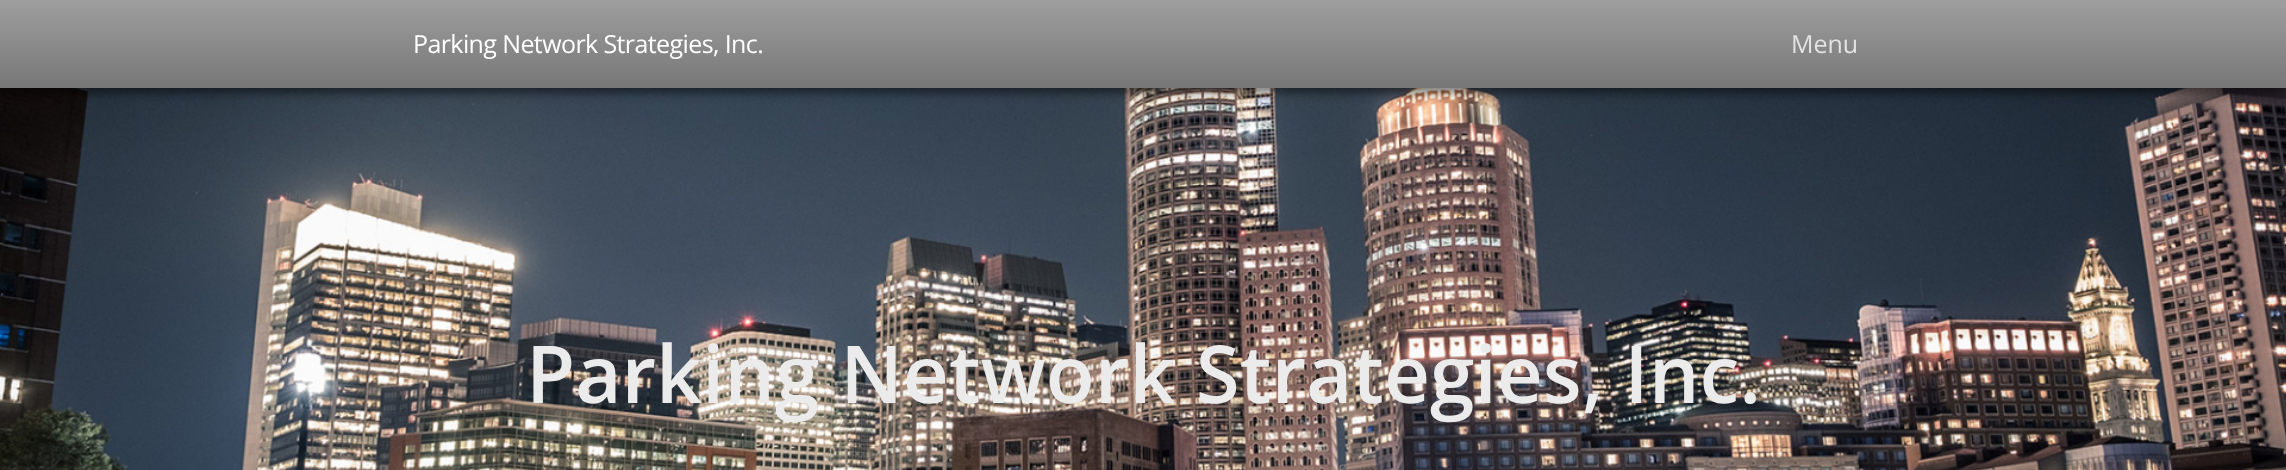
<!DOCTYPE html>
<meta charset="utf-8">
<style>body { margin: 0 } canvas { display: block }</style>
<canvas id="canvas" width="2286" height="470"></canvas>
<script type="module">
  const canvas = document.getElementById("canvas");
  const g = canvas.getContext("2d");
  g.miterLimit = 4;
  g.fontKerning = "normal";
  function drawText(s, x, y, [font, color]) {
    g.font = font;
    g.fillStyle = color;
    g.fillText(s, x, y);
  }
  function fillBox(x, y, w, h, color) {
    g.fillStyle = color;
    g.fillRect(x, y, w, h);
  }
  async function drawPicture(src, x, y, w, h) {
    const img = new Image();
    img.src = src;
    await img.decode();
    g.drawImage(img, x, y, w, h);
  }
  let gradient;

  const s1 = ["25px Open Sans", "#FFFFFF"];
  const s2 = ["25px Open Sans", "#E2E2E2"];
  const s3 = ["600 80px Open Sans", "#EBEBEB"];

  fillBox(0, 0, 2286, 470, "#FFFFFF");
  await drawPicture("pic1.png", 0, 88, 2286, 382);
  g.fillStyle = "rgba(0, 0, 0, 0.5)";
  g.filter = "blur(5px)";
  g.beginPath();
  g.rect(0, 5, 2286, 88);
  g.fill();
  g.filter = "none";
  gradient = g.createLinearGradient(1143, 88, 1143, 0);
  gradient.addColorStop(0, "#777777");
  gradient.addColorStop(1, "#9E9E9E");
  g.fillStyle = gradient;
  g.fillRect(0, 0, 2286, 88);
  g.letterSpacing = "-0.6px";
  drawText("Parking Network Strategies, Inc.", 413, 53, s1);
  g.letterSpacing = "0px";
  drawText("Menu", 1791, 53, s2);
  drawText("Parking Network Strategies, Inc.", 526, 403, s3);
</script>
